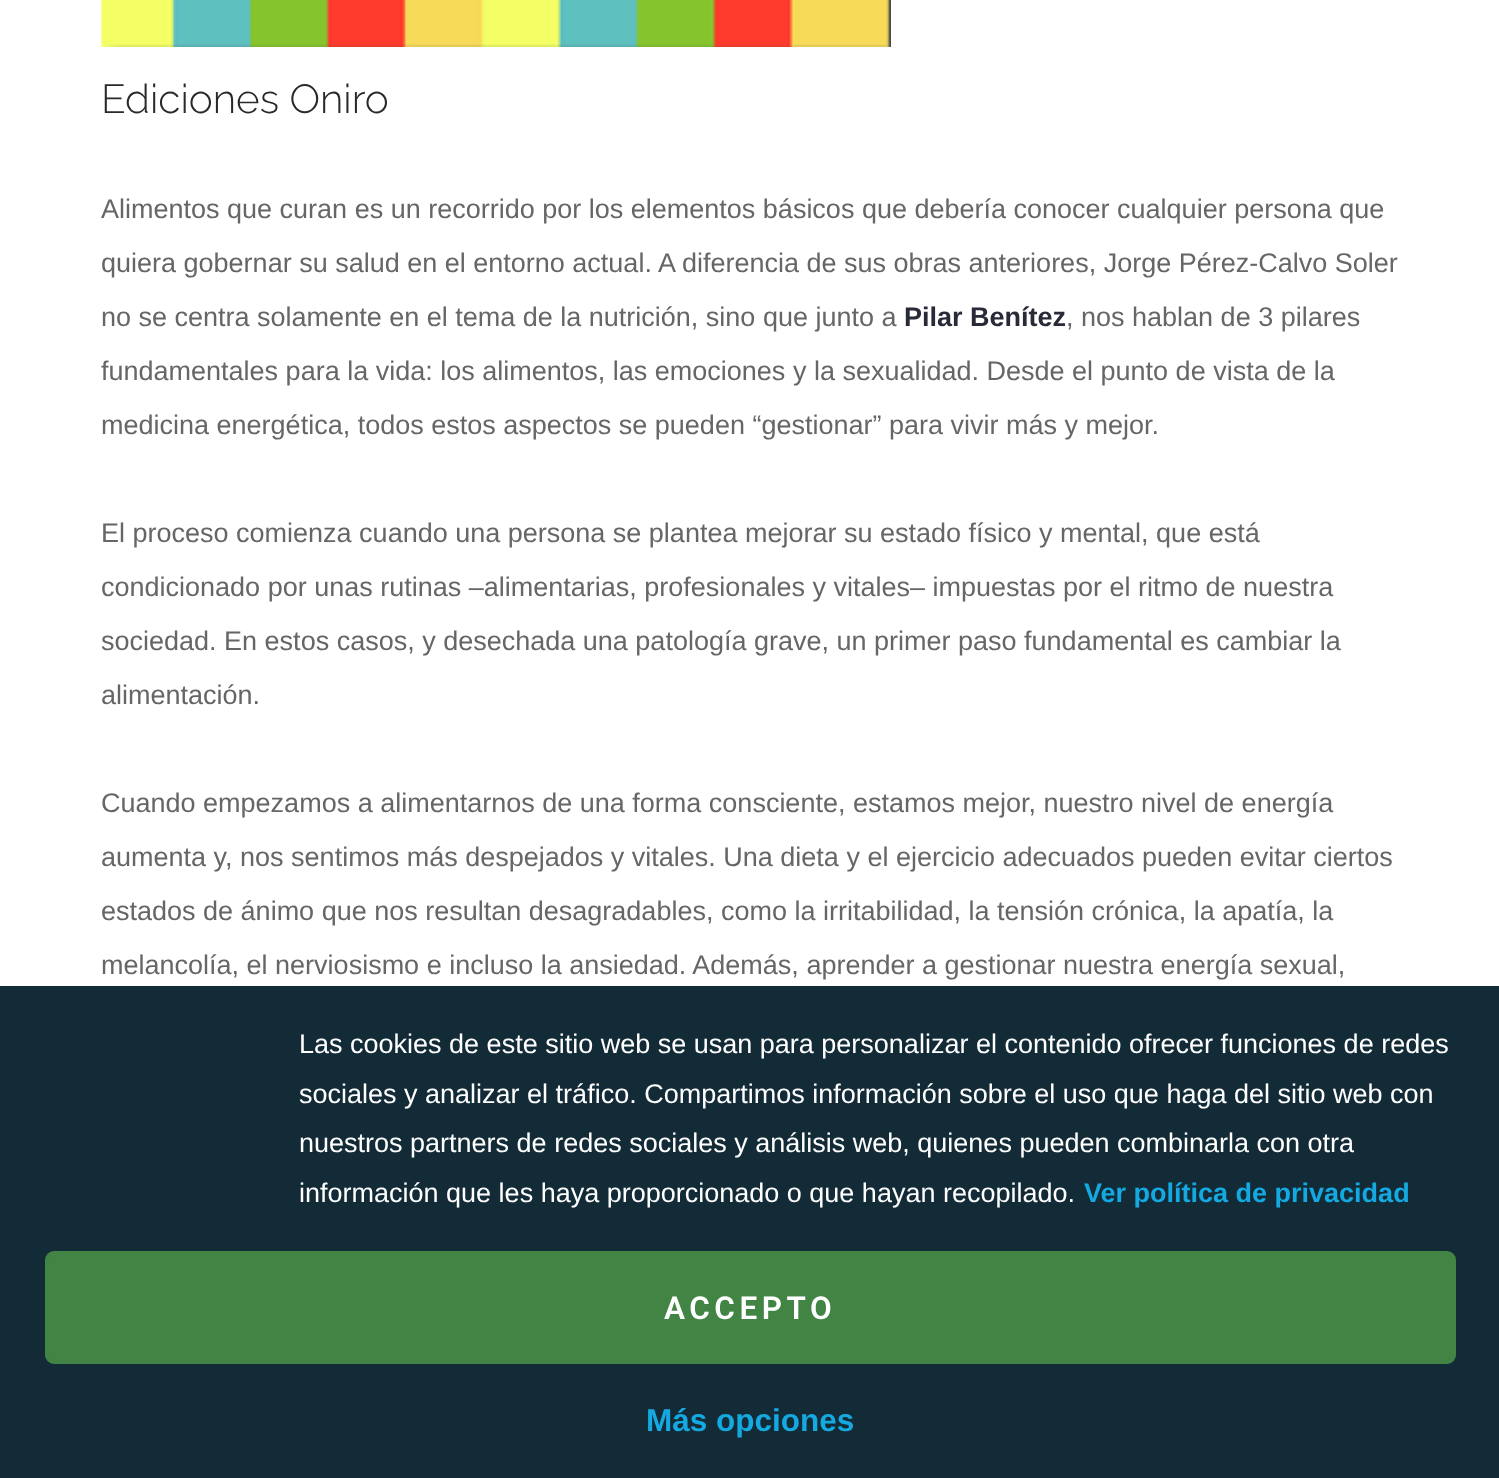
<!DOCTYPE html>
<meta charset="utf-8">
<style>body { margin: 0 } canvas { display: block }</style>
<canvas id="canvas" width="1499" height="1478"></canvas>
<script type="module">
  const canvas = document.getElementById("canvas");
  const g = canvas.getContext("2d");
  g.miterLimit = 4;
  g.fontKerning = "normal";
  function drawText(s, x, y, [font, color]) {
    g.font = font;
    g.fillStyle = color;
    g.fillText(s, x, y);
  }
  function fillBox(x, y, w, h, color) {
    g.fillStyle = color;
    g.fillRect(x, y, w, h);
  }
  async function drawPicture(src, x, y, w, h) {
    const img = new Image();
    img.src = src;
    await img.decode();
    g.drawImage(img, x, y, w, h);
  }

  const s1 = ["300 40.5px Raleway", "#292929"];
  const s2 = ["27px Liberation Sans", "#666666"];
  const s3 = ["bold 27px Liberation Sans", "#282A38"];
  const s4 = ["27px Liberation Sans", "#FFFFFF"];
  const s5 = ["bold 27px Liberation Sans", "#14A9E0"];
  const s6 = ["600 31.5px Roboto", "#FFFFFF"];
  const s7 = ["bold 31.5px Liberation Sans", "#14A9E0"];

  fillBox(0, 0, 1499, 1478, "#FFFFFF");
  await drawPicture("pic1.png", 101, 0, 790, 47);
  drawText("Ediciones Oniro", 101, 113, s1);
  drawText("Alimentos que curan es un recorrido por los elementos básicos que debería conocer cualquier persona que", 101, 218, s2);
  drawText("quiera gobernar su salud en el entorno actual. A diferencia de sus obras anteriores, Jorge Pérez-Calvo Soler", 101, 272, s2);
  drawText("no se centra solamente en el tema de la nutrición, sino que junto a", 101, 326, s2);
  drawText("Pilar Benítez", 904, 326, s3);
  drawText(", nos hablan de 3 pilares", 1066, 326, s2);
  drawText("fundamentales para la vida: los alimentos, las emociones y la sexualidad. Desde el punto de vista de la", 101, 380, s2);
  drawText("medicina energética, todos estos aspectos se pueden “gestionar” para vivir más y mejor.", 101, 434, s2);
  drawText("El proceso comienza cuando una persona se plantea mejorar su estado físico y mental, que está", 101, 542, s2);
  drawText("condicionado por unas rutinas –alimentarias, profesionales y vitales– impuestas por el ritmo de nuestra", 101, 596, s2);
  drawText("sociedad. En estos casos, y desechada una patología grave, un primer paso fundamental es cambiar la", 101, 650, s2);
  drawText("alimentación.", 101, 704, s2);
  drawText("Cuando empezamos a alimentarnos de una forma consciente, estamos mejor, nuestro nivel de energía", 101, 812, s2);
  drawText("aumenta y, nos sentimos más despejados y vitales. Una dieta y el ejercicio adecuados pueden evitar ciertos", 101, 866, s2);
  drawText("estados de ánimo que nos resultan desagradables, como la irritabilidad, la tensión crónica, la apatía, la", 101, 920, s2);
  drawText("melancolía, el nerviosismo e incluso la ansiedad. Además, aprender a gestionar nuestra energía sexual,", 101, 974, s2);
  fillBox(0, 986, 1499, 492, "#132B37");
  drawText("Las cookies de este sitio web se usan para personalizar el contenido ofrecer funciones de redes", 299, 1053, s4);
  drawText("sociales y analizar el tráfico. Compartimos información sobre el uso que haga del sitio web con", 299, 1103, s4);
  drawText("nuestros partners de redes sociales y análisis web, quienes pueden combinarla con otra", 299, 1152, s4);
  drawText("información que les haya proporcionado o que hayan recopilado.", 299, 1202, s4);
  drawText("Ver política de privacidad", 1084, 1202, s5);
  g.fillStyle = "#418443";
  g.beginPath();
  g.roundRect(47.5, 1253.5, 1406, 108, 6.5);
  g.fill();
  g.strokeStyle = "#418443";
  g.lineWidth = 5;
  g.stroke();
  g.letterSpacing = "4.5px";
  drawText("ACCEPTO", 664, 1319, s6);
  g.letterSpacing = "0px";
  drawText("Más opciones", 646, 1431, s7);
</script>
